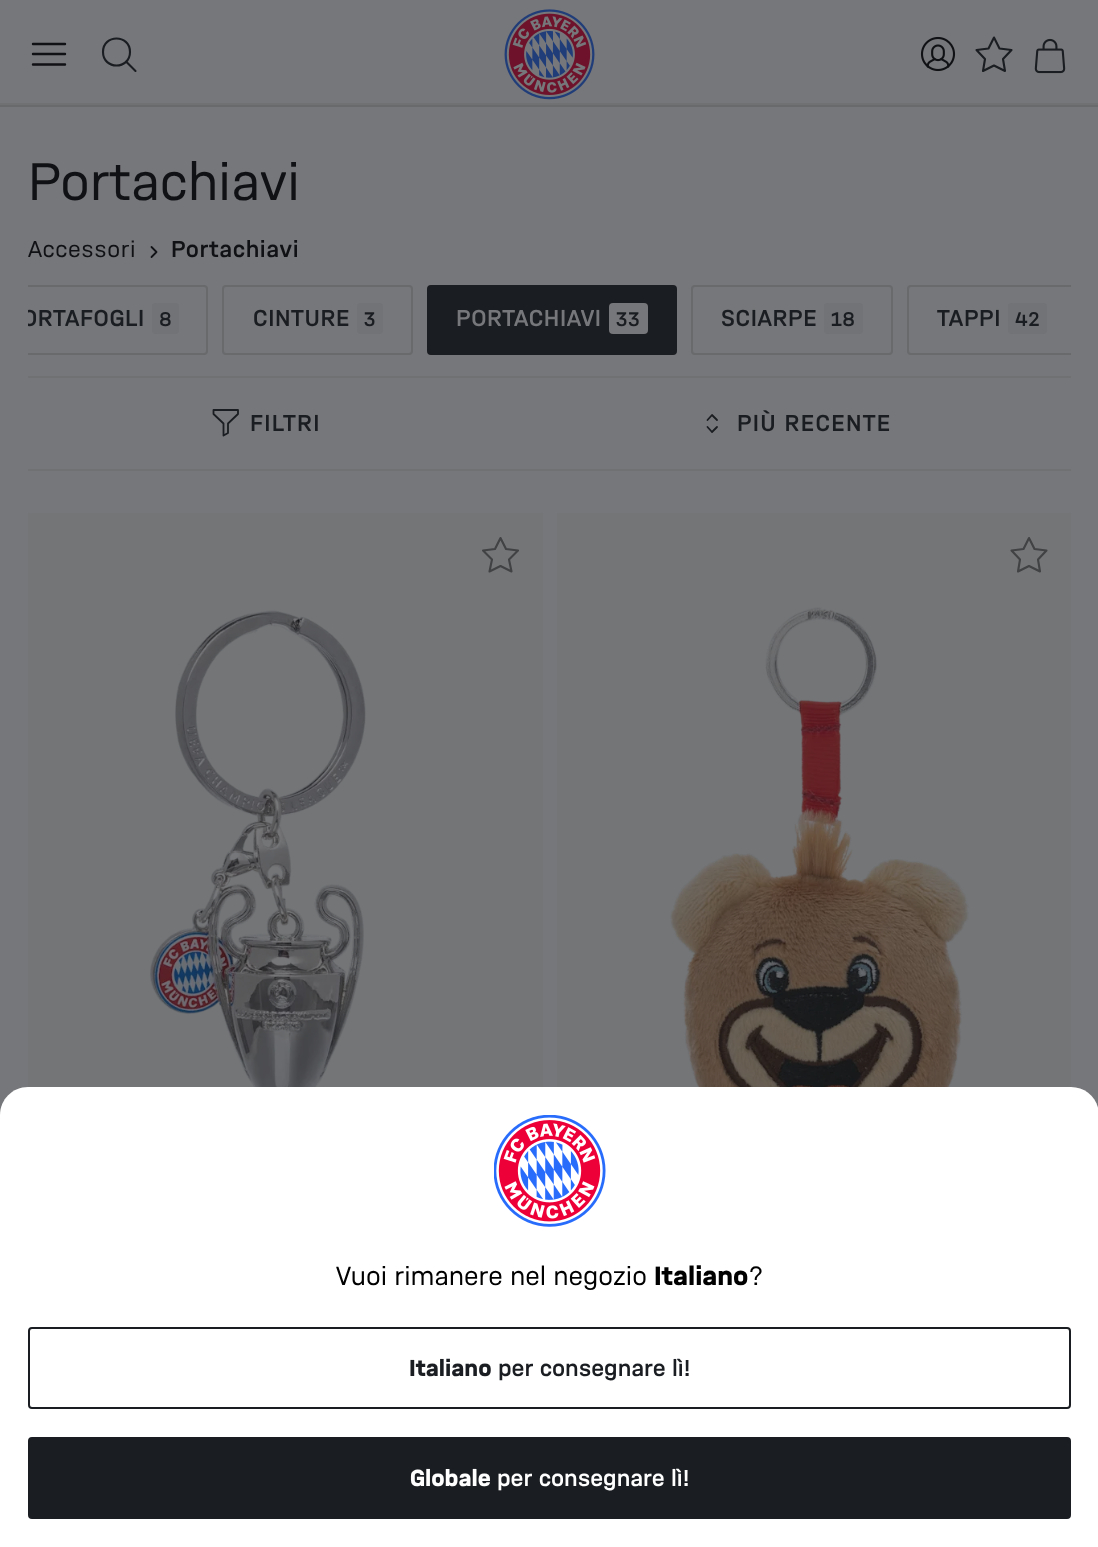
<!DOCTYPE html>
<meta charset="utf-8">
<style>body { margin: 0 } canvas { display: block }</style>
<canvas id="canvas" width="1098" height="1547"></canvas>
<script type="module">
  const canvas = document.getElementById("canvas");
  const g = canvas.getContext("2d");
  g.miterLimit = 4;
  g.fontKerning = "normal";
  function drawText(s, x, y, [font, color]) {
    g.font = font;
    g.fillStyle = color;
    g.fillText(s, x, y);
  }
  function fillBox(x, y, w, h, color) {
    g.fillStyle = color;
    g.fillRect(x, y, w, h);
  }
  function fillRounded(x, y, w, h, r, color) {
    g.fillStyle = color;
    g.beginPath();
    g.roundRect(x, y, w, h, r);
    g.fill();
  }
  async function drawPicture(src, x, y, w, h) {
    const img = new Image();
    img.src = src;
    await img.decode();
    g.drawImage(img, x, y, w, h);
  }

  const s1 = ["56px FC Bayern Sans", "#101114"];
  const s2 = ["24.5px FC Bayern Sans", "#101114"];
  const s3 = ["600 24.5px FC Bayern Sans", "#101114"];
  const s4 = ["600 24.5px FC Bayern Sans", "#1A1D21"];
  const s5 = ["600 21px FC Bayern Sans", "#1A1D21"];
  const s6 = ["600 24.5px FC Bayern Sans", "#76777A"];
  const s7 = ["28px FC Bayern Sans", "#000000"];
  const s8 = ["bold 28px FC Bayern Sans", "#000000"];
  const s9 = ["bold 24.5px FC Bayern Sans", "#1A1D21"];
  const s10 = ["bold 24.5px FC Bayern Sans", "#FFFFFF"];
  const s11 = ["600 24.5px FC Bayern Sans", "#FFFFFF"];

  fillBox(0, 0, 1098, 1547, "#76777A");
  fillBox(0, 103, 1098, 2, "#6F7173");
  g.beginPath();
  g.moveTo(33, 54);
  g.lineTo(65, 54);
  g.moveTo(33, 44);
  g.lineTo(65, 44);
  g.moveTo(33, 64.5);
  g.lineTo(65, 64.5);
  g.strokeStyle = "#101114";
  g.lineWidth = 2.4;
  g.lineCap = "round";
  g.lineJoin = "round";
  g.stroke();
  g.beginPath();
  g.moveTo(135.5, 71);
  g.lineTo(126, 61.5);
  g.moveTo(130, 52);
  g.bezierCurveTo(130, 70, 103, 70, 103, 52);
  g.bezierCurveTo(103, 34, 130, 34, 130, 52);
  g.closePath();
  g.strokeStyle = "#1A1D21";
  g.lineWidth = 2.1;
  g.lineJoin = "miter";
  g.stroke();
  await drawPicture("pic1.png", 504, 9, 91, 91);
  await drawPicture("pic2.png", 920, 36, 36, 36);
  g.beginPath();
  g.moveTo(994, 37.5);
  g.lineTo(999.5, 48.5);
  g.lineTo(1011.5, 50);
  g.lineTo(1003, 59);
  g.lineTo(1005, 71);
  g.lineTo(994, 65.5);
  g.lineTo(983, 71);
  g.lineTo(985, 59);
  g.lineTo(976.5, 50);
  g.lineTo(988.5, 48.5);
  g.closePath();
  g.lineJoin = "round";
  g.stroke();
  await drawPicture("pic3.png", 1034, 38, 32, 36);
  fillBox(0, 105, 1098, 2, "#686A6C");
  drawText("Portachiavi", 28, 200, s1);
  g.letterSpacing = "0.6px";
  drawText("Accessori", 28, 257, s2);
  g.beginPath();
  g.moveTo(151.5, 247);
  g.lineTo(156.5, 252);
  g.lineTo(151.5, 257);
  g.strokeStyle = "#121316";
  g.lineWidth = 1.8;
  g.stroke();
  drawText("Portachiavi", 171, 257, s3);
  g.save();
  g.beginPath();
  g.rect(28, 285, 1043, 77);
  g.clip();
  g.beginPath();
  g.roundRect(-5, 286, 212, 68, 3);
  g.strokeStyle = "#686A6C";
  g.lineWidth = 2;
  g.lineJoin = "miter";
  g.stroke();
  drawText("ORTAFOGLI", 22, 326, s4);
  g.restore();
  fillRounded(152, 303, 27, 31, 4, "#727376");
  drawText("8", 159, 326, s5);
  g.beginPath();
  g.roundRect(223, 286, 189, 68, 3);
  g.strokeStyle = "#686A6C";
  g.lineWidth = 2;
  g.lineJoin = "miter";
  g.stroke();
  drawText("CINTURE", 253, 326, s4);
  fillRounded(357, 303, 26, 31, 4, "#727376");
  drawText("3", 364, 326, s5);
  g.beginPath();
  g.roundRect(428, 286, 248, 68, 3);
  g.fill();
  g.strokeStyle = "#1A1D21";
  g.stroke();
  drawText("PORTACHIAVI", 456, 326, s6);
  fillRounded(609, 303, 39, 31, 4, "#76777A");
  drawText("33", 616, 326, s5);
  g.beginPath();
  g.roundRect(692, 286, 200, 68, 3);
  g.strokeStyle = "#686A6C";
  g.stroke();
  drawText("SCIARPE", 721, 326, s4);
  fillRounded(824, 303, 39, 31, 4, "#727376");
  drawText("18", 831, 326, s5);
  g.save();
  g.beginPath();
  g.rect(28, 285, 1043, 77);
  g.clip();
  g.beginPath();
  g.roundRect(908, 286, 167, 68, 3);
  g.stroke();
  g.restore();
  drawText("TAPPI", 937, 326, s4);
  fillRounded(1008, 303, 39, 31, 4, "#727376");
  drawText("42", 1015, 326, s5);
  fillBox(28, 376, 1043, 2, "#6F7173");
  g.beginPath();
  g.moveTo(238, 414);
  g.lineTo(228, 423.5);
  g.lineTo(228, 433);
  g.lineTo(223.5, 435.5);
  g.lineTo(223.5, 423.5);
  g.lineTo(213.5, 414);
  g.lineTo(213.5, 410);
  g.lineTo(238, 410);
  g.closePath();
  g.strokeStyle = "#1A1D21";
  g.lineWidth = 1.8;
  g.lineJoin = "round";
  g.stroke();
  g.letterSpacing = "1.25px";
  drawText("FILTRI", 250, 431, s4);
  g.beginPath();
  g.moveTo(707.5, 420);
  g.lineTo(712, 415);
  g.lineTo(717, 420);
  g.moveTo(717, 427);
  g.lineTo(712, 432);
  g.lineTo(707.5, 427);
  g.stroke();
  drawText("PIÙ RECENTE", 737, 431, s4);
  fillBox(28, 469, 1043, 2, "#6F7173");
  fillBox(28, 513, 515, 574, "#737577");
  await drawPicture("pic4.png", 150, 610, 216, 477);
  g.beginPath();
  g.moveTo(500.5, 538);
  g.lineTo(506, 549);
  g.lineTo(518, 550.5);
  g.lineTo(509, 559.5);
  g.lineTo(511.5, 571.5);
  g.lineTo(500.5, 566);
  g.lineTo(489.5, 571.5);
  g.lineTo(492, 559.5);
  g.lineTo(483, 550.5);
  g.lineTo(495, 549);
  g.closePath();
  g.strokeStyle = "#404244";
  g.lineWidth = 2.1;
  g.stroke();
  fillBox(557, 513, 514, 574, "#737577");
  await drawPicture("pic5.png", 670, 607, 299, 480);
  g.beginPath();
  g.moveTo(1029, 538);
  g.lineTo(1034.5, 549);
  g.lineTo(1046.5, 550.5);
  g.lineTo(1038, 559.5);
  g.lineTo(1040, 571.5);
  g.lineTo(1029, 566);
  g.lineTo(1018, 571.5);
  g.lineTo(1020, 559.5);
  g.lineTo(1011.5, 550.5);
  g.lineTo(1023.5, 549);
  g.closePath();
  g.stroke();
  g.fillStyle = "#FFFFFF";
  g.beginPath();
  g.moveTo(28, 1087);
  g.lineTo(1071, 1087);
  g.bezierCurveTo(1086.5, 1087, 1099, 1099.5, 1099, 1115);
  g.lineTo(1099, 1547);
  g.lineTo(0, 1547);
  g.lineTo(0, 1115);
  g.bezierCurveTo(0, 1099.5, 12.5, 1087, 28, 1087);
  g.closePath();
  g.fill();
  await drawPicture("pic6.png", 494, 1115, 112, 112);
  g.letterSpacing = "0px";
  drawText("Vuoi rimanere nel negozio", 336, 1285, s7);
  drawText("Italiano", 654, 1285, s8);
  drawText("?", 749, 1285, s7);
  g.beginPath();
  g.roundRect(29, 1328, 1041, 80, 3);
  g.strokeStyle = "#1A1D21";
  g.lineWidth = 2;
  g.lineJoin = "miter";
  g.stroke();
  drawText("Italiano", 409, 1376, s9);
  drawText("per consegnare lì!", 498, 1376, s4);
  g.beginPath();
  g.roundRect(29, 1438, 1041, 80, 3);
  g.fill();
  g.stroke();
  drawText("Globale", 410, 1486, s10);
  drawText("per consegnare lì!", 497, 1486, s11);
</script>
